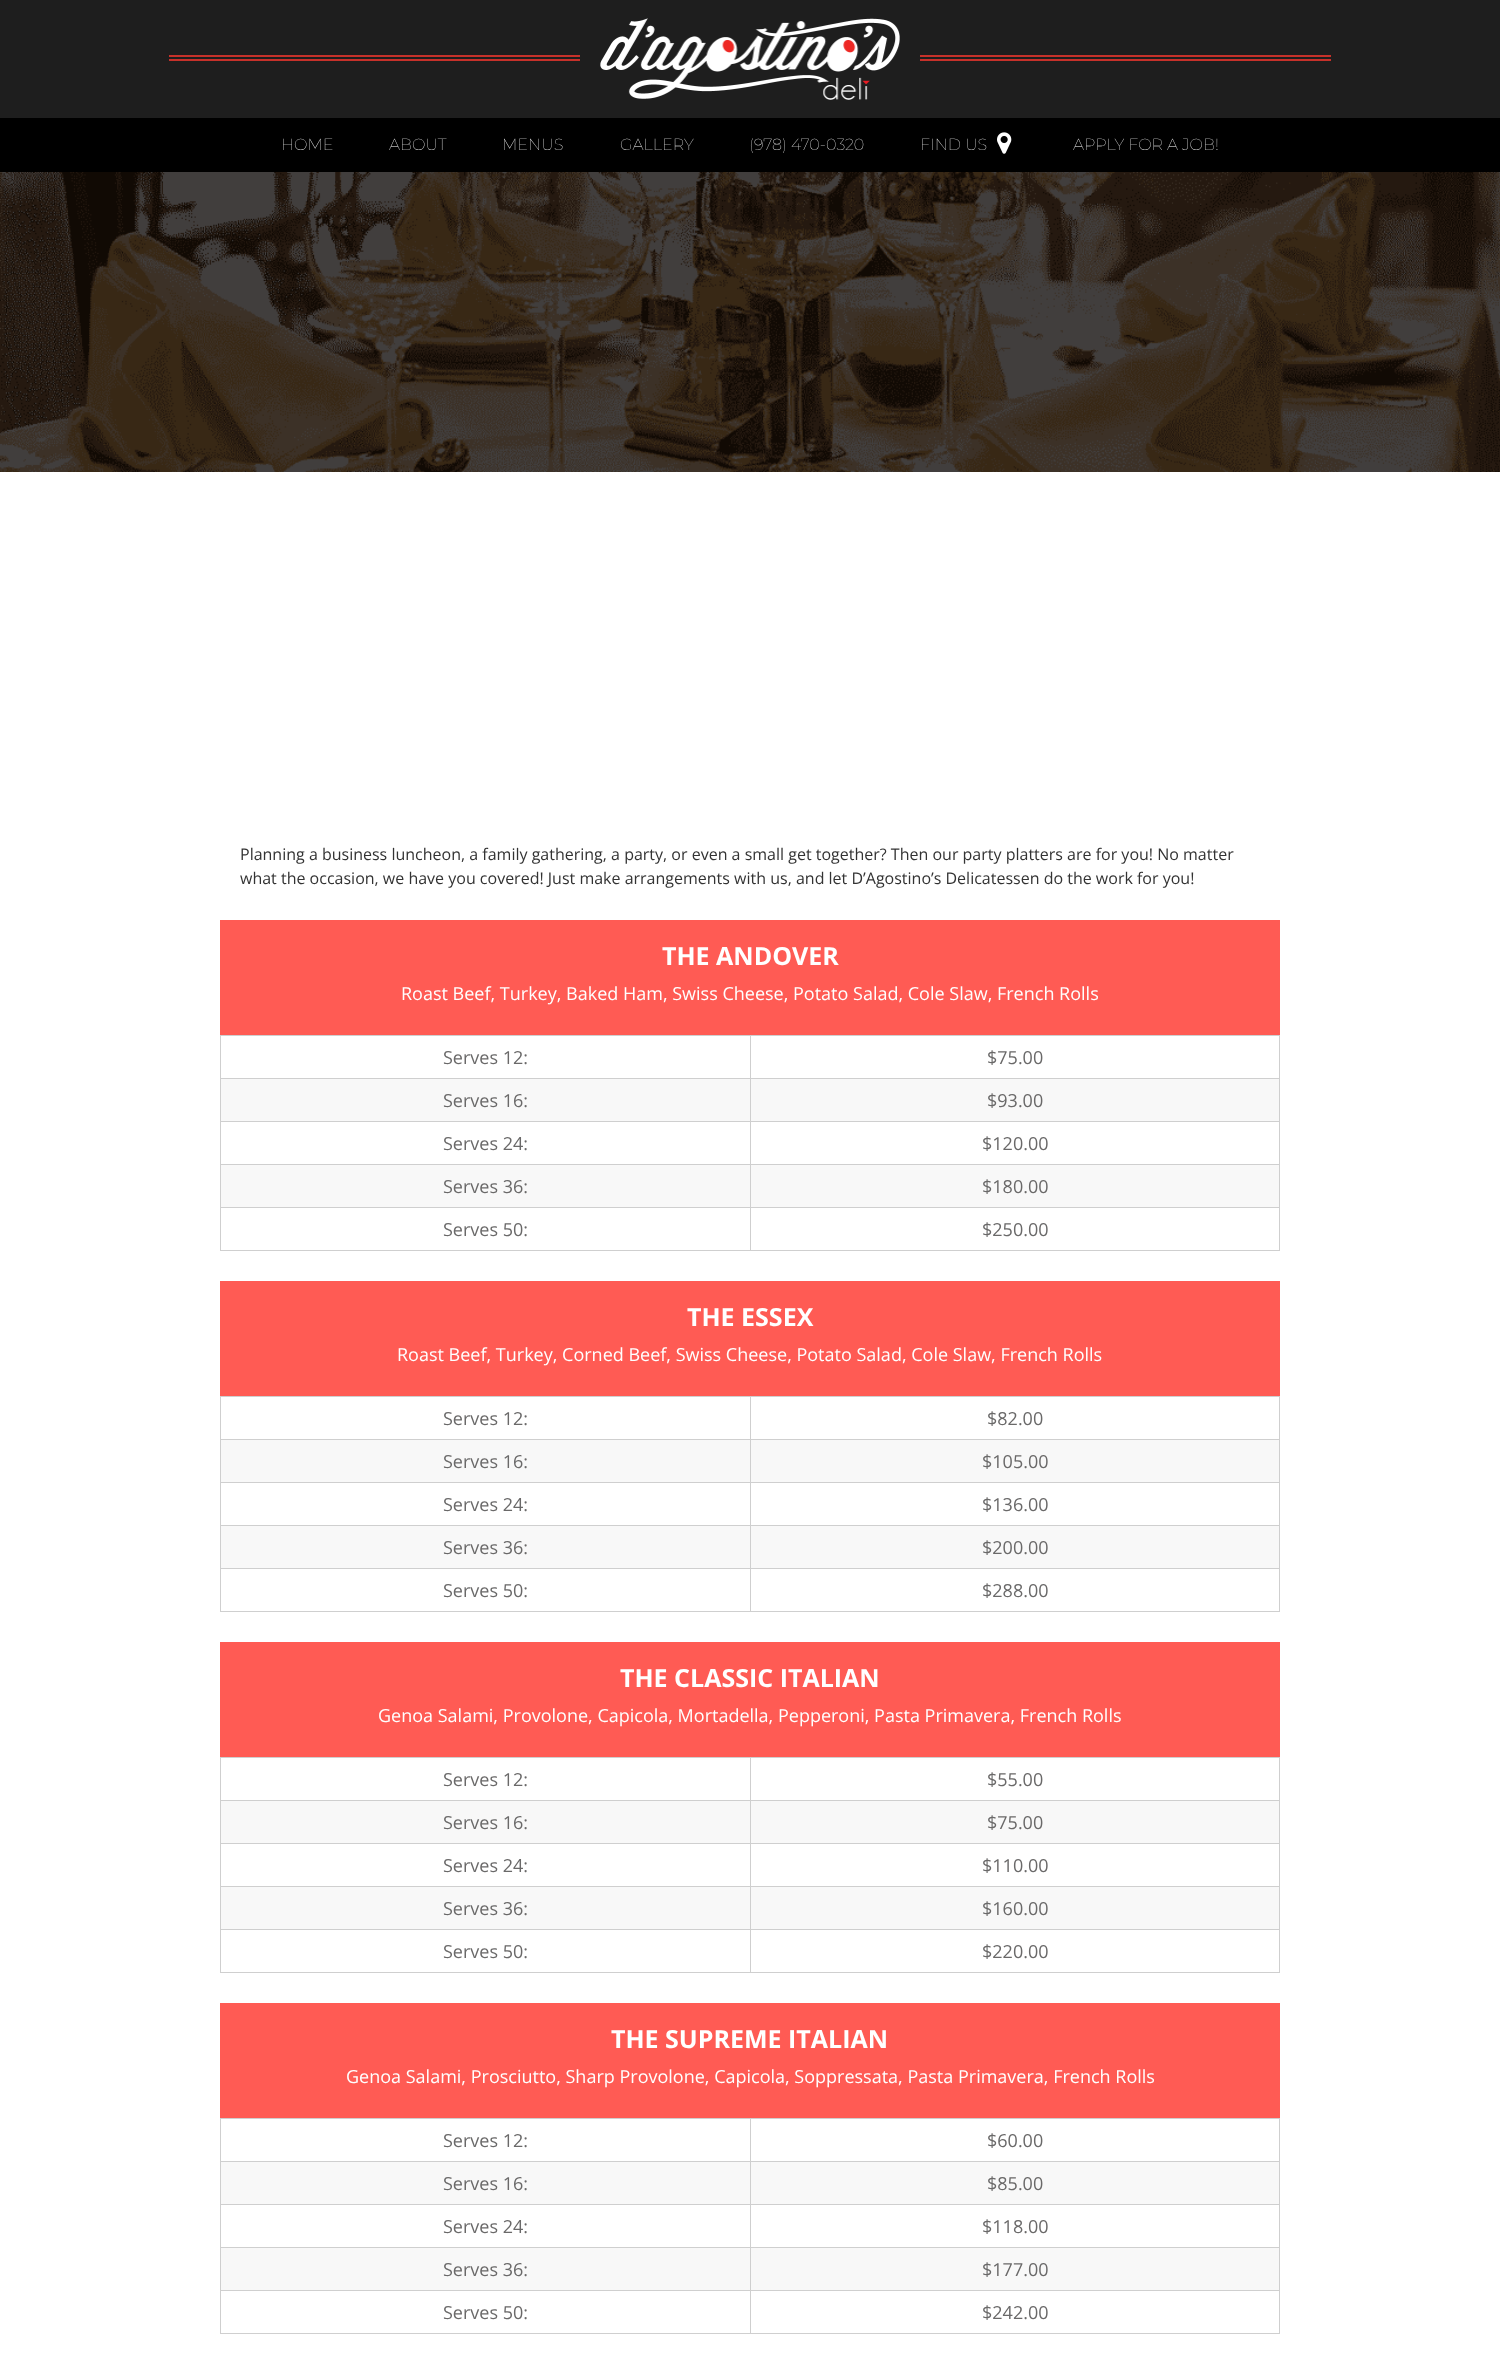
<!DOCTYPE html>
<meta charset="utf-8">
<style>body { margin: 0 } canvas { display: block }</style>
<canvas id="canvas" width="1500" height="2355"></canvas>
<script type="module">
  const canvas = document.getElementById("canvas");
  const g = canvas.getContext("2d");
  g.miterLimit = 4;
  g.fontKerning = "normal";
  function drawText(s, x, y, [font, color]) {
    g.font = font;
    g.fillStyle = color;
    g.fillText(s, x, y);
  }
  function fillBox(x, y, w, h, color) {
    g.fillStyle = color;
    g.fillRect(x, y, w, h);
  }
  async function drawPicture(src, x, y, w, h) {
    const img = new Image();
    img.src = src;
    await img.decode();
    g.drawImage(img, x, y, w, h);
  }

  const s1 = ["100 16px Montserrat", "#FFFFFF"];
  const s2 = ["16px Open Sans", "#333333"];
  const s3 = ["bold 25px Open Sans", "#FFFFFF"];
  const s4 = ["18px Open Sans", "#FFFFFF"];
  const s5 = ["18px Open Sans", "#6A6969"];

  fillBox(0, 0, 1500, 2355, "#FFFFFF");
  fillBox(0, 0, 1500, 118, "#1E1E1E");
  await drawPicture("pic1.png", 169, 55, 1162, 6);
  fillBox(580, 55, 340, 6, "#1E1E1E");
  await drawPicture("pic2.png", 600, 18, 300, 82);
  fillBox(0, 118, 1500, 54, "#000000");
  drawText("HOME", 281, 150, s1);
  drawText("ABOUT", 389, 150, s1);
  drawText("MENUS", 502, 150, s1);
  drawText("GALLERY", 620, 150, s1);
  drawText("(978) 470-0320", 749, 150, s1);
  drawText("FIND US", 920, 150, s1);
  await drawPicture("pic3.png", 997, 132, 15, 22);
  drawText("APPLY FOR A JOB!", 1073, 150, s1);
  await drawPicture("pic4.png", 0, 172, 1500, 300);
  drawText("Planning a business luncheon, a family gathering, a party, or even a small get together? Then our party platters are for you! No matter", 240, 860, s2);
  drawText("what the occasion, we have you covered! Just make arrangements with us, and let D’Agostino’s Delicatessen do the work for you!", 240, 884, s2);
  fillBox(220, 920, 1060, 115, "#FF5B54");
  drawText("THE ANDOVER", 662, 965, s3);
  drawText("Roast Beef, Turkey, Baked Ham, Swiss Cheese, Potato Salad, Cole Slaw, French Rolls", 401, 1000, s4);
  fillBox(750, 1035, 530, 1, "#CFCFCF");
  fillBox(750, 1078, 530, 1, "#CFCFCF");
  fillBox(221, 1079, 1058, 42, "#F8F8F8");
  fillBox(750, 1121, 530, 1, "#CFCFCF");
  fillBox(750, 1164, 530, 1, "#CFCFCF");
  fillBox(221, 1165, 1058, 42, "#F8F8F8");
  fillBox(750, 1207, 530, 1, "#CFCFCF");
  fillBox(1279, 1207, 1, 44, "#CFCFCF");
  fillBox(750, 1250, 530, 1, "#CFCFCF");
  fillBox(750, 1207, 1, 44, "#CFCFCF");
  fillBox(220, 1207, 531, 1, "#CFCFCF");
  fillBox(750, 1164, 1, 44, "#CFCFCF");
  fillBox(220, 1164, 531, 1, "#CFCFCF");
  fillBox(750, 1121, 1, 44, "#CFCFCF");
  fillBox(220, 1121, 531, 1, "#CFCFCF");
  fillBox(750, 1078, 1, 44, "#CFCFCF");
  fillBox(220, 1078, 531, 1, "#CFCFCF");
  fillBox(750, 1035, 1, 44, "#CFCFCF");
  fillBox(220, 1035, 531, 1, "#CFCFCF");
  fillBox(220, 1250, 531, 1, "#CFCFCF");
  fillBox(220, 1207, 1, 44, "#CFCFCF");
  fillBox(220, 1164, 1, 44, "#CFCFCF");
  fillBox(220, 1121, 1, 44, "#CFCFCF");
  fillBox(220, 1078, 1, 44, "#CFCFCF");
  fillBox(220, 1035, 1, 44, "#CFCFCF");
  drawText("Serves 12:", 443, 1064, s5);
  fillBox(1279, 1164, 1, 44, "#CFCFCF");
  fillBox(1279, 1121, 1, 44, "#CFCFCF");
  fillBox(1279, 1078, 1, 44, "#CFCFCF");
  fillBox(1279, 1035, 1, 44, "#CFCFCF");
  drawText("$75.00", 987, 1064, s5);
  drawText("Serves 16:", 443, 1107, s5);
  drawText("$93.00", 987, 1107, s5);
  drawText("Serves 24:", 443, 1150, s5);
  drawText("$120.00", 982, 1150, s5);
  drawText("Serves 36:", 443, 1193, s5);
  drawText("$180.00", 982, 1193, s5);
  drawText("Serves 50:", 443, 1236, s5);
  drawText("$250.00", 982, 1236, s5);
  fillBox(220, 1281, 1060, 115, "#FF5B54");
  drawText("THE ESSEX", 687, 1326, s3);
  drawText("Roast Beef, Turkey, Corned Beef, Swiss Cheese, Potato Salad, Cole Slaw, French Rolls", 397, 1361, s4);
  fillBox(750, 1396, 530, 1, "#CFCFCF");
  fillBox(750, 1439, 530, 1, "#CFCFCF");
  fillBox(221, 1440, 1058, 42, "#F8F8F8");
  fillBox(750, 1482, 530, 1, "#CFCFCF");
  fillBox(750, 1525, 530, 1, "#CFCFCF");
  fillBox(221, 1526, 1058, 42, "#F8F8F8");
  fillBox(750, 1568, 530, 1, "#CFCFCF");
  fillBox(1279, 1568, 1, 44, "#CFCFCF");
  fillBox(750, 1611, 530, 1, "#CFCFCF");
  fillBox(750, 1568, 1, 44, "#CFCFCF");
  fillBox(220, 1568, 531, 1, "#CFCFCF");
  fillBox(750, 1525, 1, 44, "#CFCFCF");
  fillBox(220, 1525, 531, 1, "#CFCFCF");
  fillBox(750, 1482, 1, 44, "#CFCFCF");
  fillBox(220, 1482, 531, 1, "#CFCFCF");
  fillBox(750, 1439, 1, 44, "#CFCFCF");
  fillBox(220, 1439, 531, 1, "#CFCFCF");
  fillBox(750, 1396, 1, 44, "#CFCFCF");
  fillBox(220, 1396, 531, 1, "#CFCFCF");
  fillBox(220, 1611, 531, 1, "#CFCFCF");
  fillBox(220, 1568, 1, 44, "#CFCFCF");
  fillBox(220, 1525, 1, 44, "#CFCFCF");
  fillBox(220, 1482, 1, 44, "#CFCFCF");
  fillBox(220, 1439, 1, 44, "#CFCFCF");
  fillBox(220, 1396, 1, 44, "#CFCFCF");
  drawText("Serves 12:", 443, 1425, s5);
  fillBox(1279, 1525, 1, 44, "#CFCFCF");
  fillBox(1279, 1482, 1, 44, "#CFCFCF");
  fillBox(1279, 1439, 1, 44, "#CFCFCF");
  fillBox(1279, 1396, 1, 44, "#CFCFCF");
  drawText("$82.00", 987, 1425, s5);
  drawText("Serves 16:", 443, 1468, s5);
  drawText("$105.00", 982, 1468, s5);
  drawText("Serves 24:", 443, 1511, s5);
  drawText("$136.00", 982, 1511, s5);
  drawText("Serves 36:", 443, 1554, s5);
  drawText("$200.00", 982, 1554, s5);
  drawText("Serves 50:", 443, 1597, s5);
  drawText("$288.00", 982, 1597, s5);
  fillBox(220, 1642, 1060, 115, "#FF5B54");
  drawText("THE CLASSIC ITALIAN", 620, 1687, s3);
  drawText("Genoa Salami, Provolone, Capicola, Mortadella, Pepperoni, Pasta Primavera, French Rolls", 378, 1722, s4);
  fillBox(750, 1757, 530, 1, "#CFCFCF");
  fillBox(750, 1800, 530, 1, "#CFCFCF");
  fillBox(221, 1801, 1058, 42, "#F8F8F8");
  fillBox(750, 1843, 530, 1, "#CFCFCF");
  fillBox(750, 1886, 530, 1, "#CFCFCF");
  fillBox(221, 1887, 1058, 42, "#F8F8F8");
  fillBox(750, 1929, 530, 1, "#CFCFCF");
  fillBox(1279, 1929, 1, 44, "#CFCFCF");
  fillBox(750, 1972, 530, 1, "#CFCFCF");
  fillBox(750, 1929, 1, 44, "#CFCFCF");
  fillBox(220, 1929, 531, 1, "#CFCFCF");
  fillBox(750, 1886, 1, 44, "#CFCFCF");
  fillBox(220, 1886, 531, 1, "#CFCFCF");
  fillBox(750, 1843, 1, 44, "#CFCFCF");
  fillBox(220, 1843, 531, 1, "#CFCFCF");
  fillBox(750, 1800, 1, 44, "#CFCFCF");
  fillBox(220, 1800, 531, 1, "#CFCFCF");
  fillBox(750, 1757, 1, 44, "#CFCFCF");
  fillBox(220, 1757, 531, 1, "#CFCFCF");
  fillBox(220, 1972, 531, 1, "#CFCFCF");
  fillBox(220, 1929, 1, 44, "#CFCFCF");
  fillBox(220, 1886, 1, 44, "#CFCFCF");
  fillBox(220, 1843, 1, 44, "#CFCFCF");
  fillBox(220, 1800, 1, 44, "#CFCFCF");
  fillBox(220, 1757, 1, 44, "#CFCFCF");
  drawText("Serves 12:", 443, 1786, s5);
  fillBox(1279, 1886, 1, 44, "#CFCFCF");
  fillBox(1279, 1843, 1, 44, "#CFCFCF");
  fillBox(1279, 1800, 1, 44, "#CFCFCF");
  fillBox(1279, 1757, 1, 44, "#CFCFCF");
  drawText("$55.00", 987, 1786, s5);
  drawText("Serves 16:", 443, 1829, s5);
  drawText("$75.00", 987, 1829, s5);
  drawText("Serves 24:", 443, 1872, s5);
  drawText("$110.00", 982, 1872, s5);
  drawText("Serves 36:", 443, 1915, s5);
  drawText("$160.00", 982, 1915, s5);
  drawText("Serves 50:", 443, 1958, s5);
  drawText("$220.00", 982, 1958, s5);
  fillBox(220, 2003, 1060, 115, "#FF5B54");
  drawText("THE SUPREME ITALIAN", 611, 2048, s3);
  drawText("Genoa Salami, Prosciutto, Sharp Provolone, Capicola, Soppressata, Pasta Primavera, French Rolls", 346, 2083, s4);
  fillBox(750, 2118, 530, 1, "#CFCFCF");
  fillBox(750, 2161, 530, 1, "#CFCFCF");
  fillBox(221, 2162, 1058, 42, "#F8F8F8");
  fillBox(750, 2204, 530, 1, "#CFCFCF");
  fillBox(750, 2247, 530, 1, "#CFCFCF");
  fillBox(221, 2248, 1058, 42, "#F8F8F8");
  fillBox(750, 2290, 530, 1, "#CFCFCF");
  fillBox(1279, 2290, 1, 44, "#CFCFCF");
  fillBox(750, 2333, 530, 1, "#CFCFCF");
  fillBox(750, 2290, 1, 44, "#CFCFCF");
  fillBox(220, 2290, 531, 1, "#CFCFCF");
  fillBox(750, 2247, 1, 44, "#CFCFCF");
  fillBox(220, 2247, 531, 1, "#CFCFCF");
  fillBox(750, 2204, 1, 44, "#CFCFCF");
  fillBox(220, 2204, 531, 1, "#CFCFCF");
  fillBox(750, 2161, 1, 44, "#CFCFCF");
  fillBox(220, 2161, 531, 1, "#CFCFCF");
  fillBox(750, 2118, 1, 44, "#CFCFCF");
  fillBox(220, 2118, 531, 1, "#CFCFCF");
  fillBox(220, 2333, 531, 1, "#CFCFCF");
  fillBox(220, 2290, 1, 44, "#CFCFCF");
  fillBox(220, 2247, 1, 44, "#CFCFCF");
  fillBox(220, 2204, 1, 44, "#CFCFCF");
  fillBox(220, 2161, 1, 44, "#CFCFCF");
  fillBox(220, 2118, 1, 44, "#CFCFCF");
  drawText("Serves 12:", 443, 2147, s5);
  fillBox(1279, 2247, 1, 44, "#CFCFCF");
  fillBox(1279, 2204, 1, 44, "#CFCFCF");
  fillBox(1279, 2161, 1, 44, "#CFCFCF");
  fillBox(1279, 2118, 1, 44, "#CFCFCF");
  drawText("$60.00", 987, 2147, s5);
  drawText("Serves 16:", 443, 2190, s5);
  drawText("$85.00", 987, 2190, s5);
  drawText("Serves 24:", 443, 2233, s5);
  drawText("$118.00", 982, 2233, s5);
  drawText("Serves 36:", 443, 2276, s5);
  drawText("$177.00", 982, 2276, s5);
  drawText("Serves 50:", 443, 2319, s5);
  drawText("$242.00", 982, 2319, s5);
</script>
